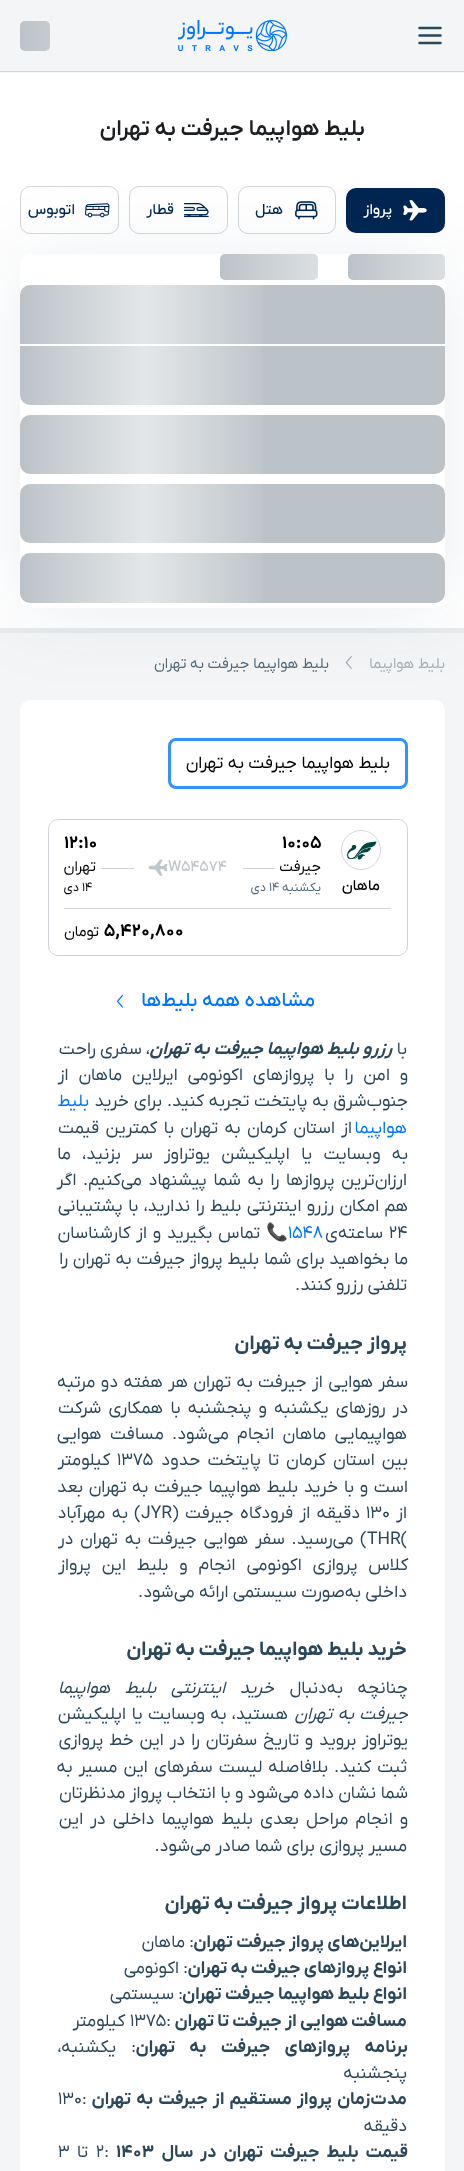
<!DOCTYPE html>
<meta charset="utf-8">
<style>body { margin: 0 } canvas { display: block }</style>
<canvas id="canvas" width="464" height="2171"></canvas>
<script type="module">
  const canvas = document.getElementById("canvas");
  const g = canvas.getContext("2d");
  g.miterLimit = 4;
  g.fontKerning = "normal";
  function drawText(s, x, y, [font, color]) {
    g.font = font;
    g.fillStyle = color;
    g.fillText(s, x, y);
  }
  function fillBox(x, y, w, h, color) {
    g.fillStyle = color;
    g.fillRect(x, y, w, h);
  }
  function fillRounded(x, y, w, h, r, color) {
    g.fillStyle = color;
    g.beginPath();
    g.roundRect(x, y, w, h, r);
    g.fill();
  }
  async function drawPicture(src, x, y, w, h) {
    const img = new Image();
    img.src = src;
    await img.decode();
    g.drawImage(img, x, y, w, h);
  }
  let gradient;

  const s1 = ["600 22.5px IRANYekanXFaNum", "#1C1F22"];
  const s2 = ["500 15px IRANYekanXFaNum", "#FFFFFF"];
  const s3 = ["500 15px IRANYekanXFaNum", "#002652"];
  const s4 = ["15px IRANYekanXFaNum", "#A4AEB5"];
  const s5 = ["15px IRANYekanXFaNum", "#506878"];
  const s6 = ["17.5px IRANYekanXFaNum", "#000000"];
  const s7 = ["500 15px IRANYekanXFaNum", "#000000"];
  const s8 = ["bold 17.5px IRANYekanXFaNum", "#000000"];
  const s9 = ["15px IRANYekanXFaNum", "#000000"];
  const s10 = ["500 15px IRANYekanXFaNum", "#BFC6CB"];
  const s11 = ["12.5px IRANYekanXFaNum", "#506878"];
  const s12 = ["12.5px IRANYekanXFaNum", "#000000"];
  const s13 = ["500 20px IRANYekanXFaNum", "#0075FF"];
  const s14 = ["17.5px IRANYekanXFaNum", "#2B475A"];
  const s15 = ["italic bold 17.5px IRANYekanXFaNum", "#2B475A"];
  const s16 = ["17.5px IRANYekanXFaNum", "#0075FF"];
  const s17 = ["17.5px Noto Color Emoji", "#2B475A"];
  const s18 = ["bold 20px IRANYekanXFaNum", "#2B475A"];
  const s19 = ["italic 17.5px IRANYekanXFaNum", "#2B475A"];
  const s20 = ["bold 17.5px IRANYekanXFaNum", "#2B475A"];

  fillBox(0, 0, 464, 2171, "#F4F5F6");
  fillBox(0, 71, 464, 1, "#D2D7DA");
  g.beginPath();
  g.moveTo(419.5, 35.5);
  g.lineTo(440.5, 35.5);
  g.moveTo(419.5, 28);
  g.lineTo(440.5, 28);
  g.moveTo(419.5, 43);
  g.lineTo(440.5, 43);
  g.strokeStyle = "#2B475A";
  g.lineWidth = 2.5;
  g.lineCap = "round";
  g.lineJoin = "round";
  g.stroke();
  await drawPicture("pic1.png", 178, 20, 109, 31);
  fillRounded(20, 21, 30, 30, 5, "#BCC3C8");
  gradient = g.createLinearGradient(20, 36, 270, 36);
  gradient.addColorStop(0, "rgba(255, 255, 255, 0)");
  gradient.addColorStop(0.5, "rgba(255, 255, 255, 0.6)");
  gradient.addColorStop(1, "rgba(255, 255, 255, 0)");
  g.fillStyle = gradient;
  g.beginPath();
  g.roundRect(20, 21, 30, 30, 5);
  g.fill();
  fillBox(0, 73, 464, 555, "#FFFFFF");
  fillBox(0, 628, 464, 5, "#E9EBED");
  g.direction = "rtl";
  drawText("بلیط هواپیما جیرفت", 365, 135, s1);
  drawText("به تهران", 176, 135, s1);
  fillRounded(346, 188, 99, 45, 10, "#002652");
  await drawPicture("pic2.png", 403, 200, 24, 21);
  g.beginPath();
  g.roundRect(238.5, 186.5, 97, 47, 9.5);
  g.strokeStyle = "#D2D7DA";
  g.lineWidth = 1;
  g.lineJoin = "miter";
  g.stroke();
  await drawPicture("pic3.png", 295, 201, 23, 19);
  g.beginPath();
  g.roundRect(129.5, 186.5, 98, 47, 9.5);
  g.stroke();
  await drawPicture("pic4.png", 183, 203, 26, 15);
  g.beginPath();
  g.roundRect(20.5, 186.5, 98, 47, 9.5);
  g.stroke();
  await drawPicture("pic5.png", 85, 203, 25, 15);
  await drawPicture("pic6.png", 345, 656, 7, 13);
  fillRounded(20, 700, 425, 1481, 10, "#FFFFFF");
  g.fillStyle = "rgba(0, 38, 82, 0.08)";
  g.filter = "blur(40px)";
  g.beginPath();
  g.roundRect(20, 259, 425, 354, 10);
  g.fill();
  g.filter = "none";
  fillRounded(20, 254, 425, 354, 10, "#FFFFFF");
  fillRounded(348, 254, 97, 26, 5, "#BCC3C8");
  gradient = g.createLinearGradient(348, 267, 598, 267);
  gradient.addColorStop(0, "rgba(255, 255, 255, 0)");
  gradient.addColorStop(0.5, "rgba(255, 255, 255, 0.6)");
  gradient.addColorStop(1, "rgba(255, 255, 255, 0)");
  g.fillStyle = gradient;
  g.beginPath();
  g.roundRect(348, 254, 97, 26, 5);
  g.fill();
  fillRounded(220, 254, 98, 26, 5, "#BCC3C8");
  gradient = g.createLinearGradient(220, 267, 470, 267);
  gradient.addColorStop(0, "rgba(255, 255, 255, 0)");
  gradient.addColorStop(0.5, "rgba(255, 255, 255, 0.6)");
  gradient.addColorStop(1, "rgba(255, 255, 255, 0)");
  g.fillStyle = gradient;
  g.beginPath();
  g.roundRect(220, 254, 98, 26, 5);
  g.fill();
  g.fillStyle = "#BCC3C8";
  g.beginPath();
  g.roundRect(20, 285, 425, 59, [10, 10, 0, 0]);
  g.fill();
  gradient = g.createLinearGradient(20, 314, 270, 314);
  gradient.addColorStop(0, "rgba(255, 255, 255, 0)");
  gradient.addColorStop(0.5, "rgba(255, 255, 255, 0.6)");
  gradient.addColorStop(1, "rgba(255, 255, 255, 0)");
  g.fillStyle = gradient;
  g.fillRect(28, 285, 234, 59);
  g.fillStyle = "#BCC3C8";
  g.beginPath();
  g.roundRect(20, 346, 425, 59, [0, 0, 10, 10]);
  g.fill();
  gradient = g.createLinearGradient(20, 376, 270, 376);
  gradient.addColorStop(0, "rgba(255, 255, 255, 0)");
  gradient.addColorStop(0.5, "rgba(255, 255, 255, 0.6)");
  gradient.addColorStop(1, "rgba(255, 255, 255, 0)");
  g.fillStyle = gradient;
  g.fillRect(28, 346, 234, 59);
  fillRounded(20, 415, 425, 59, 10, "#BCC3C8");
  gradient = g.createLinearGradient(20, 444, 270, 444);
  gradient.addColorStop(0, "rgba(255, 255, 255, 0)");
  gradient.addColorStop(0.5, "rgba(255, 255, 255, 0.6)");
  gradient.addColorStop(1, "rgba(255, 255, 255, 0)");
  g.fillStyle = gradient;
  g.fillRect(28, 415, 234, 59);
  fillRounded(20, 484, 425, 59, 10, "#BCC3C8");
  gradient = g.createLinearGradient(20, 513, 270, 513);
  gradient.addColorStop(0, "rgba(255, 255, 255, 0)");
  gradient.addColorStop(0.5, "rgba(255, 255, 255, 0.6)");
  gradient.addColorStop(1, "rgba(255, 255, 255, 0)");
  g.fillStyle = gradient;
  g.fillRect(28, 484, 234, 59);
  fillRounded(20, 553, 425, 50, 10, "#BCC3C8");
  gradient = g.createLinearGradient(20, 578, 270, 578);
  gradient.addColorStop(0, "rgba(255, 255, 255, 0)");
  gradient.addColorStop(0.5, "rgba(255, 255, 255, 0.6)");
  gradient.addColorStop(1, "rgba(255, 255, 255, 0)");
  g.fillStyle = gradient;
  g.fillRect(28, 553, 234, 50);
  drawText("پرواز", 392, 214, s2);
  drawText("هتل", 283, 214, s3);
  drawText("قطار", 174, 214, s3);
  drawText("اتوبوس", 75, 214, s3);
  drawText("بلیط هواپیما", 445, 668, s4);
  drawText("بلیط هواپیما جیرفت", 329, 668, s5);
  drawText("به تهران", 204, 668, s5);
  g.beginPath();
  g.roundRect(169.5, 739.5, 237, 48, 6.5);
  g.strokeStyle = "#3392FF";
  g.lineWidth = 3;
  g.stroke();
  drawText("بلیط هواپیما جیرفت", 390, 768, s6);
  drawText("به تهران", 244, 768, s6);
  g.beginPath();
  g.roundRect(48.5, 819.5, 359, 136, 9.5);
  g.strokeStyle = "#CED3D7";
  g.lineWidth = 1;
  g.stroke();
  g.beginPath();
  g.arc(361, 850, 19.5, 0, Math.PI * 2);
  g.strokeStyle = "#D2D7DA";
  g.stroke();
  await drawPicture("pic7.png", 346, 841, 31, 19);
  drawText("ماهان", 380, 890, s7);
  g.direction = "ltr";
  drawText("10:05", 282, 848, s8);
  drawText("12:10", 64, 848, s8);
  g.direction = "rtl";
  drawText("جیرفت", 321, 871, s9);
  fillBox(243, 868, 32, 1, "#CED3D7");
  g.direction = "ltr";
  drawText("W54574", 168, 871, s10);
  await drawPicture("pic8.png", 148, 859, 20, 17);
  fillBox(101, 868, 33, 1, "#CED3D7");
  g.direction = "rtl";
  drawText("تهران", 96, 871, s9);
  drawText("یکشنبه", 321, 891, s11);
  g.direction = "ltr";
  drawText("۱۴", 269, 891, s11);
  g.direction = "rtl";
  drawText("دی", 266, 891, s11);
  g.direction = "ltr";
  drawText("۱۴", 82, 891, s12);
  g.direction = "rtl";
  drawText("دی", 79, 891, s12);
  fillBox(64, 908, 327, 1, "#D2D7DA");
  g.direction = "ltr";
  drawText("5,420,800", 104, 936, s8);
  g.direction = "rtl";
  drawText("تومان", 99, 936, s9);
  drawText("مشاهده همه بلیط‌ها", 315, 1006, s13);
  await drawPicture("pic9.png", 116, 994, 8, 14);
  drawText("با", 407, 1054, s14);
  g.wordSpacing = "0.5px";
  drawText("رزرو بلیط هواپیما جیرفت به تهران", 392, 1054, s15);
  g.wordSpacing = "0px";
  drawText("، سفری راحت", 150, 1054, s14);
  g.wordSpacing = "5.5px";
  drawText("و امن را با پروازهای اکونومی ایرلاین ماهان از", 408, 1080, s14);
  g.wordSpacing = "0.5px";
  drawText("جنوب‌شرق به پایتخت تجربه کنید. برای خرید", 408, 1106, s14);
  g.wordSpacing = "0px";
  drawText("بلیط", 89, 1106, s16);
  drawText("هواپیما", 407, 1133, s16);
  g.wordSpacing = "2px";
  drawText("از استان کرمان به تهران با کمترین قیمت", 352, 1133, s14);
  g.wordSpacing = "7px";
  drawText("به وبسایت یا اپلیکیشن یوتراوز سر بزنید، ما", 408, 1159, s14);
  g.wordSpacing = "2.25px";
  drawText("ارزان‌ترین پروازها را به شما پیشنهاد می‌کنیم. اگر", 407, 1185, s14);
  g.wordSpacing = "1px";
  drawText("هم امکان رزرو اینترنتی بلیط را ندارید، با پشتیبانی", 408, 1211, s14);
  g.wordSpacing = "0px";
  g.direction = "ltr";
  drawText("24", 389, 1238, s14);
  g.direction = "rtl";
  drawText("ساعته‌ی", 383, 1238, s14);
  g.direction = "ltr";
  drawText("1548", 288, 1238, s16);
  g.direction = "rtl";
  drawText("📞", 288, 1238, s17);
  g.wordSpacing = "1.5px";
  drawText("تماس بگیرید و از کارشناسان", 260, 1238, s14);
  g.wordSpacing = "0.5px";
  drawText("ما بخواهید برای شما بلیط پرواز جیرفت به تهران را", 408, 1264, s14);
  g.wordSpacing = "0px";
  drawText("تلفنی رزرو کنند.", 407, 1290, s14);
  drawText("پرواز جیرفت به تهران", 407, 1349, s18);
  g.wordSpacing = "1px";
  drawText("سفر هوایی از جیرفت به تهران هر هفته دو مرتبه", 408, 1387, s14);
  g.wordSpacing = "2.75px";
  drawText("در روزهای یکشنبه و پنجشنبه با همکاری شرکت", 408, 1413, s14);
  g.wordSpacing = "4px";
  drawText("هواپیمایی ماهان انجام می‌شود. مسافت هوایی", 407, 1439, s14);
  g.wordSpacing = "2.75px";
  drawText("بین استان کرمان تا پایتخت حدود", 408, 1465, s14);
  g.wordSpacing = "0px";
  g.direction = "ltr";
  drawText("1375", 117, 1465, s14);
  g.direction = "rtl";
  drawText("کیلومتر", 110, 1465, s14);
  g.wordSpacing = "1.25px";
  drawText("است و با خرید بلیط هواپیما جیرفت به تهران بعد", 408, 1492, s14);
  g.wordSpacing = "0px";
  drawText("از", 407, 1518, s14);
  g.direction = "ltr";
  drawText("130", 366, 1518, s14);
  g.wordSpacing = "2px";
  g.direction = "rtl";
  drawText("دقیقه از فرودگاه جیرفت (", 360, 1518, s14);
  g.wordSpacing = "0px";
  g.direction = "ltr";
  drawText("JYR", 141, 1518, s14);
  g.wordSpacing = "2px";
  g.direction = "rtl";
  drawText(") به مهرآباد", 141, 1518, s14);
  g.wordSpacing = "0px";
  g.direction = "ltr";
  drawText("THR(", 367, 1544, s14);
  g.wordSpacing = "2.5px";
  g.direction = "rtl";
  drawText(") می‌رسید. سفر هوایی جیرفت به تهران در", 367, 1544, s14);
  g.wordSpacing = "6.5px";
  drawText("کلاس پروازی اکونومی انجام و بلیط این پرواز", 408, 1570, s14);
  g.wordSpacing = "0px";
  drawText("داخلی به‌صورت سیستمی ارائه می‌شود.", 407, 1597, s14);
  drawText("خرید بلیط هواپیما جیرفت به تهران", 407, 1655, s18);
  g.wordSpacing = "10px";
  drawText("چنانچه به‌دنبال", 408, 1693, s14);
  drawText("خرید اینترنتی بلیط هواپیما", 274, 1693, s19);
  g.wordSpacing = "1px";
  drawText("جیرفت به تهران", 408, 1719, s19);
  drawText("هستید، به وبسایت یا اپلیکیشن", 288, 1719, s14);
  g.wordSpacing = "1.5px";
  drawText("یوتراوز بروید و تاریخ سفرتان را در این خط پروازی", 408, 1745, s14);
  g.wordSpacing = "1.75px";
  drawText("ثبت کنید. بلافاصله لیست سفرهای این مسیر به", 407, 1772, s14);
  g.wordSpacing = "0px";
  drawText("شما نشان داده می‌شود و با انتخاب پرواز مدنظرتان", 408, 1798, s14);
  g.wordSpacing = "2.75px";
  drawText("و انجام مراحل بعدی بلیط هواپیما داخلی در این", 408, 1824, s14);
  g.wordSpacing = "0px";
  drawText("مسیر پروازی برای شما صادر می‌شود.", 407, 1851, s14);
  drawText("اطلاعات پرواز جیرفت به تهران", 407, 1909, s18);
  drawText("ایرلاین‌های پرواز جیرفت تهران", 407, 1947, s20);
  drawText(": ماهان", 194, 1947, s14);
  drawText("انواع پروازهای جیرفت به تهران", 407, 1973, s20);
  drawText(": اکونومی", 188, 1973, s14);
  drawText("انواع بلیط هواپیما جیرفت تهران", 407, 1999, s20);
  drawText(": سیستمی", 183, 1999, s14);
  drawText("مسافت هوایی از جیرفت تا تهران", 407, 2026, s20);
  g.direction = "ltr";
  drawText("1375:", 130, 2026, s14);
  g.direction = "rtl";
  drawText("کیلومتر", 125, 2026, s14);
  g.wordSpacing = "11px";
  drawText("برنامه پروازهای جیرفت به تهران", 408, 2052, s20);
  drawText(": یکشنبه،", 136, 2052, s14);
  g.wordSpacing = "0px";
  drawText("پنجشنبه", 407, 2078, s14);
  g.wordSpacing = "1.75px";
  drawText("مدت‌زمان پرواز مستقیم از جیرفت به تهران", 407, 2104, s20);
  g.wordSpacing = "0px";
  g.direction = "ltr";
  drawText("130:", 58, 2104, s14);
  g.direction = "rtl";
  drawText("دقیقه", 407, 2131, s14);
  g.wordSpacing = "3.5px";
  drawText("قیمت بلیط جیرفت تهران در سال", 408, 2157, s20);
  g.wordSpacing = "0px";
  g.direction = "ltr";
  drawText("1403", 116, 2157, s20);
  drawText("2:", 96, 2157, s14);
  g.direction = "rtl";
  drawText("تا", 88, 2157, s14);
  g.direction = "ltr";
  drawText("3", 58, 2157, s14);
</script>
